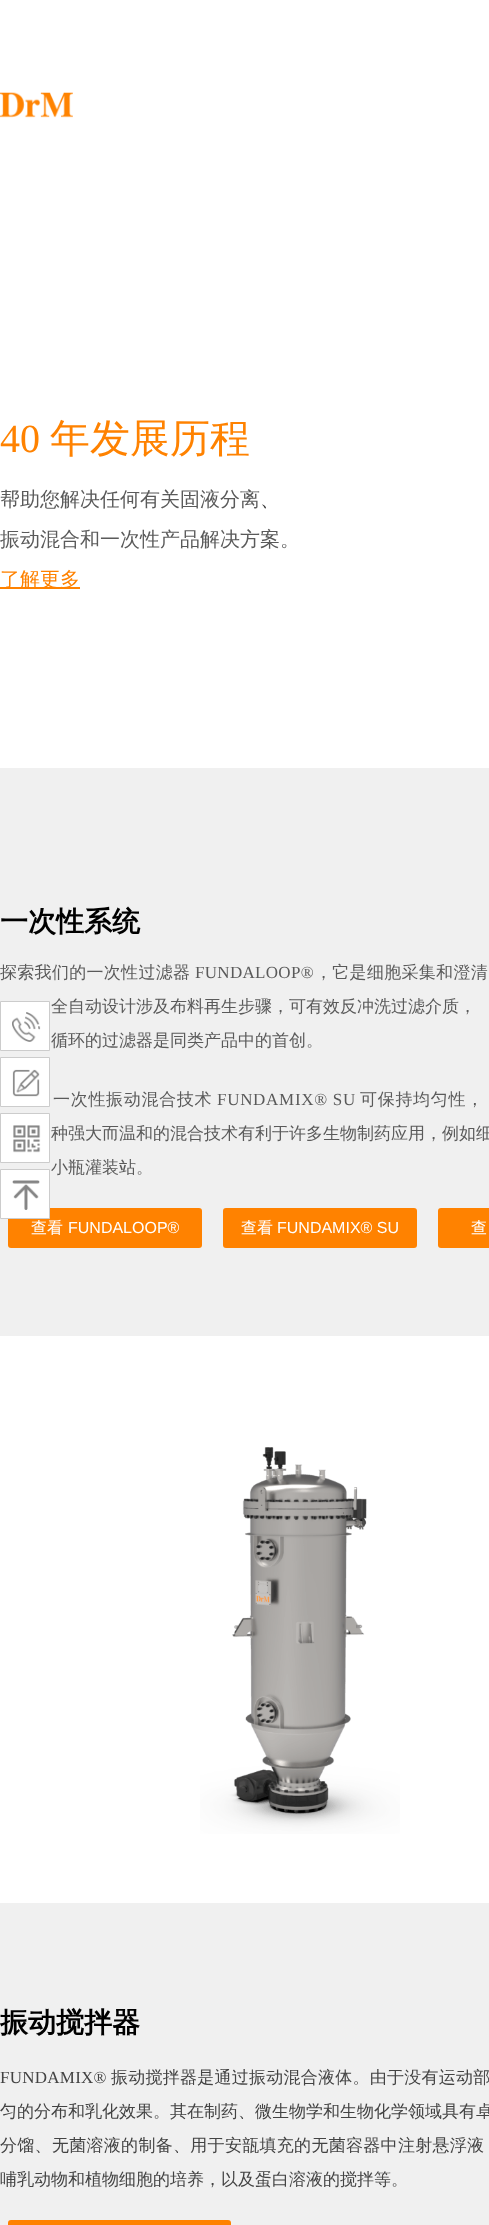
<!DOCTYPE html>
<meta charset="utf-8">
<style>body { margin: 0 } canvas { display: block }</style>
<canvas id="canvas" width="489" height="2225"></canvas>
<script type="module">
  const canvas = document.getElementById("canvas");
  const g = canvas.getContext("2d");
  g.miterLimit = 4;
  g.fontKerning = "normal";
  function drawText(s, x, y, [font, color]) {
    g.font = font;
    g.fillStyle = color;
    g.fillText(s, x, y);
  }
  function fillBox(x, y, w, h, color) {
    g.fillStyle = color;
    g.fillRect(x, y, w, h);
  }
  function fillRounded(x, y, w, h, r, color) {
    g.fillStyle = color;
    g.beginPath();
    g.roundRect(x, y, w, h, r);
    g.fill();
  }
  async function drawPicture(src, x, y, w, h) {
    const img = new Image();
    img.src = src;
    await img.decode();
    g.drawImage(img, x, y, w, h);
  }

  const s1 = ["40px Liberation Serif", "#FF8200"];
  const s2 = ["500 40px WenQuanYi Zen Hei", "#FF8200"];
  const s3 = ["500 20px WenQuanYi Zen Hei", "#5A5A5A"];
  const s4 = ["500 20px WenQuanYi Zen Hei", "#333333"];
  const s5 = ["500 20px WenQuanYi Zen Hei", "#FF8200"];
  const s6 = ["bold 28px WenQuanYi Zen Hei", "#000000"];
  const s7 = ["500 17px WenQuanYi Zen Hei", "#5A5A5A"];
  const s8 = ["17px Liberation Serif", "#5A5A5A"];
  const s9 = ["500 16px WenQuanYi Zen Hei", "#FFFFFF"];
  const s10 = ["16px Liberation Sans", "#FFFFFF"];
  const s11 = ["17px Liberation Serif", "#434343"];
  const s12 = ["500 17px WenQuanYi Zen Hei", "#434343"];

  fillBox(0, 0, 489, 2225, "#FFFFFF");
  await drawPicture("pic1.png", 0, 92, 73, 26);
  drawText("40", 0, 452, s1);
  drawText("年发展历程", 50, 452, s2);
  drawText("帮助您解决任何有关固液分离", 0, 506, s3);
  drawText("、", 260, 506, s4);
  drawText("振动混合和一次性产品解决方案。", 0, 546, s3);
  fillBox(0, 587, 80, 2, "#FF8200");
  drawText("了解更多", 0, 586, s5);
  fillBox(0, 768, 489, 568, "#F0F0F0");
  drawText("一次性系统", 0, 931, s6);
  g.letterSpacing = "0.3px";
  drawText("探索我们的一次性过滤器", 0, 978, s7);
  drawText("FUNDALOOP®", 195, 978, s8);
  drawText("，它是细胞采集和澄清", 315, 978, s7);
  g.letterSpacing = "0px";
  drawText("全自动设计涉及布料再生步骤，可有效反冲洗过滤介质，", 51, 1012, s7);
  drawText("循环的过滤器是同类产品中的首创。", 51, 1046, s7);
  g.letterSpacing = "0.7px";
  drawText("一次性振动混合技术", 53, 1105, s7);
  drawText("FUNDAMIX® SU", 217, 1105, s8);
  drawText("可保持均匀性，", 360, 1105, s7);
  g.letterSpacing = "0px";
  drawText("种强大而温和的混合技术有利于许多生物制药应用，例如细", 51, 1139, s7);
  drawText("小瓶灌装站。", 51, 1173, s7);
  fillRounded(8, 1208, 194, 40, 3, "#FF8200");
  drawText("查看", 31, 1233, s9);
  drawText("FUNDALOOP®", 68, 1233, s10);
  fillRounded(223, 1208, 194, 40, 3, "#FF8200");
  drawText("查看", 241, 1233, s9);
  drawText("FUNDAMIX® SU", 277, 1233, s10);
  g.fillStyle = "#FF8200";
  g.beginPath();
  g.roundRect(438, 1208, 51, 40, [3, 0, 0, 3]);
  g.fill();
  drawText("查", 471, 1233, s9);
  await drawPicture("pic2.png", 200, 1447, 200, 387);
  fillBox(0, 1903, 489, 322, "#F0F0F0");
  drawText("振动搅拌器", 0, 2032, s6);
  g.letterSpacing = "0.25px";
  drawText("FUNDAMIX®", 0, 2083, s11);
  drawText("振动搅拌器是通过振动混合液体。由于没有运动部", 111, 2083, s12);
  g.letterSpacing = "0px";
  drawText("匀的分布和乳化效果。其在制药、微生物学和生物化学领域具有卓", 0, 2117, s12);
  g.letterSpacing = "0.3px";
  drawText("分馏、无菌溶液的制备、用于安瓿填充的无菌容器中注射悬浮液", 0, 2151, s12);
  g.letterSpacing = "0px";
  drawText("哺乳动物和植物细胞的培养，以及蛋白溶液的搅拌等。", 0, 2185, s12);
  g.fillStyle = "#FF8200";
  g.beginPath();
  g.roundRect(8, 2220, 223, 5, [3, 3, 0, 0]);
  g.fill();
  g.fillStyle = "#FFFFFF";
  g.beginPath();
  g.rect(0.5, 1001.5, 49, 49);
  g.fill();
  g.strokeStyle = "#CCCCCC";
  g.stroke();
  await drawPicture("pic3.png", 12, 1012, 29, 30);
  g.beginPath();
  g.rect(0.5, 1057.5, 49, 49);
  g.fill();
  g.stroke();
  await drawPicture("pic4.png", 12, 1069, 28, 28);
  g.beginPath();
  g.rect(0.5, 1113.5, 49, 49);
  g.fill();
  g.stroke();
  await drawPicture("pic5.png", 13, 1125, 28, 28);
  g.beginPath();
  g.rect(0.5, 1169.5, 49, 49);
  g.fill();
  g.stroke();
  await drawPicture("pic6.png", 12, 1180, 28, 30);
</script>
